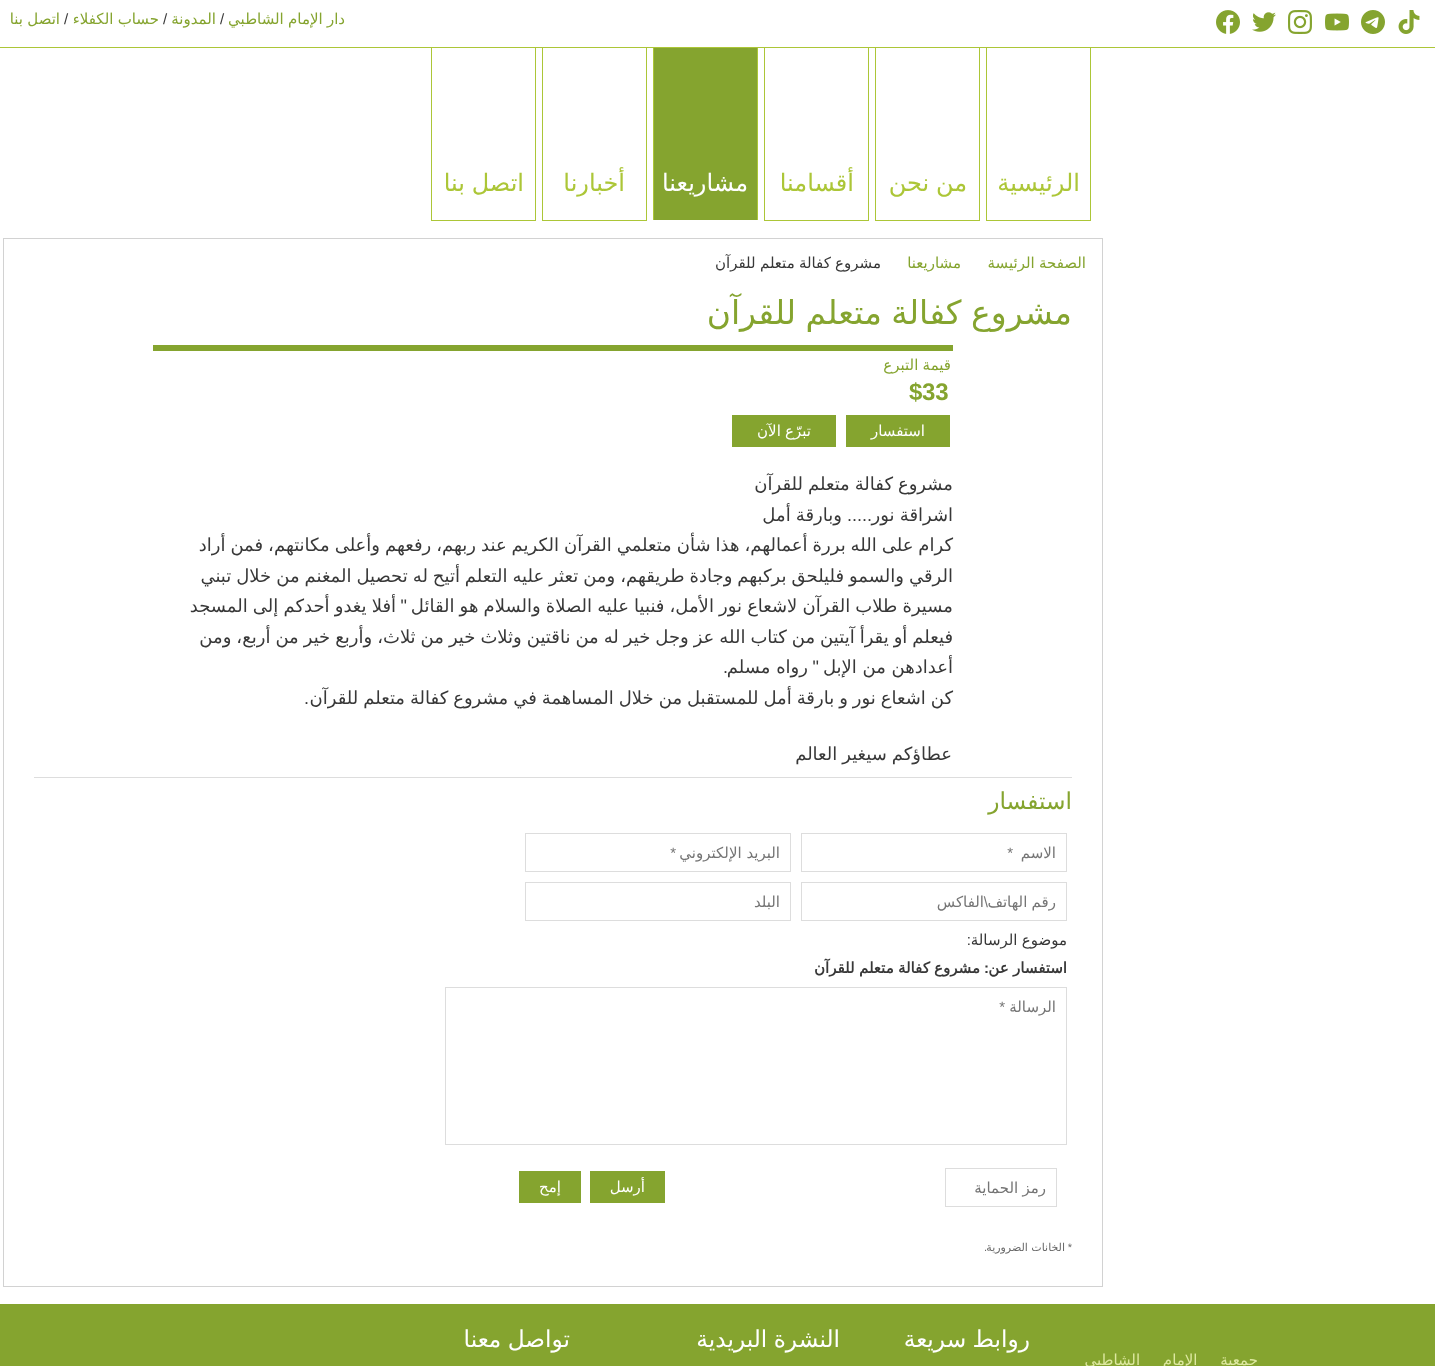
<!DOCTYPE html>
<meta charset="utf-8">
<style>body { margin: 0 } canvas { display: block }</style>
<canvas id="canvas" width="1435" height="1366"></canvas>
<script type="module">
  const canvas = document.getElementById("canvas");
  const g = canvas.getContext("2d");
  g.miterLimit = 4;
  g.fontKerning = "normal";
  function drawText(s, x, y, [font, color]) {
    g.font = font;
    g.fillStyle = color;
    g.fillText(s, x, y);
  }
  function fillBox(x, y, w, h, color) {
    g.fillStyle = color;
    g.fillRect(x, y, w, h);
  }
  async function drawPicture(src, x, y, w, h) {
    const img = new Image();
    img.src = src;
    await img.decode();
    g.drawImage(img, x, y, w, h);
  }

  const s1 = ["15px DejaVu Sans", "#85A42F"];
  const s2 = ["15px Liberation Sans", "#383838"];
  const s3 = ["24px DejaVu Sans", "#ACC637"];
  const s4 = ["24px DejaVu Sans", "#FFFFFF"];
  const s5 = ["15px DejaVu Sans", "#383838"];
  const s6 = ["33px DejaVu Sans", "#85A42F"];
  const s7 = ["bold 24px Liberation Sans", "#85A42F"];
  const s8 = ["15px DejaVu Sans", "#FFFFFF"];
  const s9 = ["18px DejaVu Sans", "#383838"];
  const s10 = ["18px Liberation Sans", "#383838"];
  const s11 = ["23.25px DejaVu Sans", "#85A42F"];
  const s12 = ["15px DejaVu Sans", "#757575"];
  const s13 = ["15px Liberation Sans", "#757575"];
  const s14 = ["bold 15px DejaVu Sans", "#383838"];
  const s15 = ["bold 15px Liberation Sans", "#383838"];
  const s16 = ["11px Liberation Sans", "#696969"];
  const s17 = ["11px DejaVu Sans", "#696969"];
  const s18 = ["23.25px DejaVu Sans", "#FFFFFF"];
  const s19 = ["15px DejaVu Sans", "#DDE8A0"];

  fillBox(0, 0, 1435, 1366, "#FFFFFF");
  fillBox(0, 47, 1435, 1, "#ACC637");
  await drawPicture("pic1.png", 1398, 10, 22, 24);
  await drawPicture("pic2.png", 1361, 10, 24, 24);
  await drawPicture("pic3.png", 1325, 13, 24, 18);
  await drawPicture("pic4.png", 1288, 10, 24, 24);
  await drawPicture("pic5.png", 1252, 12, 24, 20);
  await drawPicture("pic6.png", 1216, 10, 24, 24);
  g.wordSpacing = "-0.5px";
  g.direction = "rtl";
  drawText("دار الإمام الشاطبي", 345, 24, s1);
  g.wordSpacing = "0px";
  g.direction = "ltr";
  drawText("/", 220, 24, s2);
  g.direction = "rtl";
  drawText("المدونة", 216, 24, s1);
  g.direction = "ltr";
  drawText("/", 163, 24, s2);
  g.wordSpacing = "-0.5px";
  g.direction = "rtl";
  drawText("حساب الكفلاء", 159, 24, s1);
  g.wordSpacing = "0px";
  g.direction = "ltr";
  drawText("/", 64, 24, s2);
  g.wordSpacing = "-0.5px";
  g.direction = "rtl";
  drawText("اتصل بنا", 60, 24, s1);
  fillBox(1090, 48, 1, 173, "#ACC637");
  fillBox(986, 220, 105, 1, "#ACC637");
  fillBox(986, 48, 1, 173, "#ACC637");
  g.wordSpacing = "0px";
  drawText("الرئيسية", 1080, 191, s3);
  fillBox(979, 48, 1, 173, "#ACC637");
  fillBox(875, 220, 105, 1, "#ACC637");
  fillBox(875, 48, 1, 173, "#ACC637");
  g.wordSpacing = "-1px";
  drawText("من نحن", 967, 191, s3);
  fillBox(868, 48, 1, 173, "#ACC637");
  fillBox(764, 220, 105, 1, "#ACC637");
  fillBox(764, 48, 1, 173, "#ACC637");
  g.wordSpacing = "0px";
  drawText("أقسامنا", 854, 191, s3);
  fillBox(654, 48, 103, 172, "#85A42F");
  fillBox(757, 48, 1, 172, "#ACC637");
  fillBox(653, 48, 1, 172, "#ACC637");
  drawText("مشاريعنا", 748, 191, s4);
  fillBox(646, 48, 1, 173, "#ACC637");
  fillBox(542, 220, 105, 1, "#ACC637");
  fillBox(542, 48, 1, 173, "#ACC637");
  drawText("أخبارنا", 625, 191, s3);
  fillBox(535, 48, 1, 173, "#ACC637");
  fillBox(431, 220, 105, 1, "#ACC637");
  fillBox(431, 48, 1, 173, "#ACC637");
  g.wordSpacing = "-1px";
  drawText("اتصل بنا", 524, 191, s3);
  g.strokeStyle = "#D2D2D2";
  g.strokeRect(3.5, 238.5, 1099, 1048);
  g.wordSpacing = "-0.5px";
  drawText("الصفحة الرئيسة", 1086, 268, s1);
  g.wordSpacing = "0px";
  drawText("مشاريعنا", 961, 268, s1);
  g.wordSpacing = "-0.5px";
  drawText("مشروع كفالة متعلم للقرآن", 881, 268, s5);
  g.wordSpacing = "-1px";
  drawText("مشروع كفالة متعلم للقرآن", 1072, 324, s6);
  fillBox(153, 345, 800, 6, "#85A42F");
  g.wordSpacing = "-0.5px";
  drawText("قيمة التبرع", 951, 370, s1);
  g.wordSpacing = "0px";
  g.direction = "ltr";
  drawText("33", 922, 400, s7);
  drawText("$", 909, 400, s7);
  fillBox(846, 415, 104, 32, "#85A42F");
  g.direction = "rtl";
  drawText("استفسار", 925, 436, s8);
  fillBox(732, 415, 104, 32, "#85A42F");
  g.wordSpacing = "-0.5px";
  drawText("تبرّع الآن", 811, 436, s8);
  g.wordSpacing = "-0.75px";
  drawText("مشروع كفالة متعلم للقرآن", 953, 490, s9);
  g.wordSpacing = "0px";
  drawText(".....", 872, 521, s10);
  g.wordSpacing = "-0.5px";
  drawText("اشراقة نور", 953, 521, s9);
  drawText("وبارقة أمل", 842, 521, s9);
  g.wordSpacing = "-0.75px";
  drawText("كرام على الله بررة أعمالهم، هذا شأن متعلمي القرآن الكريم عند ربهم، رفعهم وأعلى مكانتهم، فمن أراد", 953, 551, s9);
  drawText("الرقي والسمو فليلحق بركبهم وجادة طريقهم، ومن تعثر عليه التعلم أتيح له تحصيل المغنم من خلال تبني", 953, 582, s9);
  g.wordSpacing = "-0.6px";
  drawText("مسيرة طلاب القرآن لاشعاع نور الأمل، فنبيا عليه الصلاة والسلام هو القائل", 953, 612, s9);
  g.wordSpacing = "0px";
  drawText("\"", 407, 612, s10);
  g.wordSpacing = "-0.6px";
  drawText("أفلا يغدو أحدكم إلى المسجد", 396, 612, s9);
  g.wordSpacing = "-0.75px";
  drawText("فيعلم أو يقرأ آيتين من كتاب الله عز وجل خير له من ناقتين وثلاث خير من ثلاث، وأربع خير من أربع، ومن", 953, 643, s9);
  g.wordSpacing = "0px";
  drawText("أعدادهن من الإبل", 953, 673, s9);
  drawText("\"", 819, 673, s10);
  drawText("رواه مسلم", 808, 673, s9);
  drawText(".", 728, 673, s10);
  g.wordSpacing = "-0.75px";
  drawText("كن اشعاع نور و بارقة أمل للمستقبل من خلال المساهمة في مشروع كفالة متعلم للقرآن", 953, 704, s9);
  g.wordSpacing = "0px";
  drawText(".", 309, 704, s10);
  g.wordSpacing = "-0.75px";
  drawText("عطاؤكم سيغير العالم", 952, 760, s9);
  fillBox(34, 777, 1038, 1, "#DDDDDD");
  g.wordSpacing = "0px";
  drawText("استفسار", 1072, 809, s11);
  g.strokeStyle = "#DDDDDD";
  g.strokeRect(801.5, 833.5, 265, 38);
  drawText("الاسم", 1056, 858, s12);
  drawText("*", 1013, 858, s13);
  g.strokeRect(525.5, 833.5, 265, 38);
  drawText("البريد الإلكتروني", 780, 858, s12);
  drawText("*", 676, 858, s13);
  g.strokeRect(801.5, 882.5, 265, 38);
  g.wordSpacing = "-0.5px";
  drawText("رقم الهاتف", 1056, 907, s12);
  g.wordSpacing = "0px";
  drawText("\\", 988, 907, s13);
  drawText("الفاكس", 984, 907, s12);
  g.strokeRect(525.5, 882.5, 265, 38);
  drawText("البلد", 780, 907, s12);
  g.wordSpacing = "-0.5px";
  drawText("موضوع الرسالة", 1067, 945, s5);
  g.wordSpacing = "0px";
  drawText(":", 971, 945, s2);
  g.wordSpacing = "-0.5px";
  drawText("استفسار عن", 1067, 973, s14);
  g.wordSpacing = "0px";
  drawText(":", 989, 973, s15);
  g.wordSpacing = "-0.5px";
  drawText("مشروع كفالة متعلم للقرآن", 980, 973, s14);
  g.strokeRect(445.5, 987.5, 621, 157);
  g.wordSpacing = "0px";
  drawText("الرسالة", 1056, 1012, s12);
  drawText("*", 1005, 1012, s13);
  g.strokeRect(945.5, 1168.5, 111, 38);
  g.wordSpacing = "-0.5px";
  drawText("رمز الحماية", 1046, 1193, s12);
  fillBox(590, 1171, 75, 32, "#85A42F");
  g.wordSpacing = "0px";
  drawText("أرسل", 645, 1192, s8);
  fillBox(519, 1171, 62, 32, "#85A42F");
  drawText("إمح", 561, 1192, s8);
  drawText("*", 1072, 1251, s16);
  drawText("الخانات الضرورية", 1065, 1251, s17);
  drawText(".", 987, 1251, s16);
  fillBox(0, 1304, 1435, 62, "#85A42F");
  g.wordSpacing = "-1px";
  drawText("روابط سريعة", 1030, 1347, s18);
  drawText("النشرة البريدية", 840, 1347, s18);
  drawText("تواصل معنا", 570, 1347, s18);
  g.wordSpacing = "18px";
  drawText("جمعية الإمام الشاطبي", 1258, 1365, s19);
</script>
